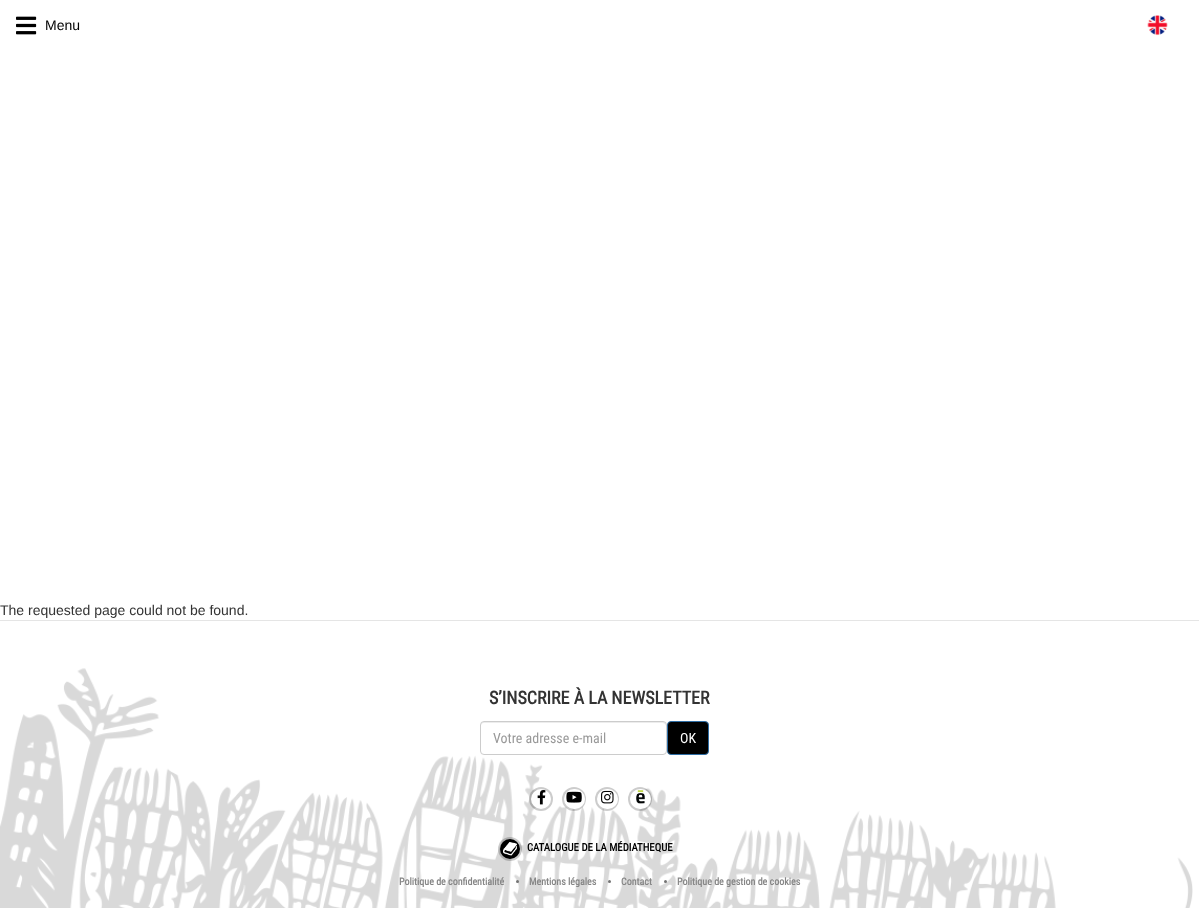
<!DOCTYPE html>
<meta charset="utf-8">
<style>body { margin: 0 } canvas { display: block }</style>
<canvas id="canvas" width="1199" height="920"></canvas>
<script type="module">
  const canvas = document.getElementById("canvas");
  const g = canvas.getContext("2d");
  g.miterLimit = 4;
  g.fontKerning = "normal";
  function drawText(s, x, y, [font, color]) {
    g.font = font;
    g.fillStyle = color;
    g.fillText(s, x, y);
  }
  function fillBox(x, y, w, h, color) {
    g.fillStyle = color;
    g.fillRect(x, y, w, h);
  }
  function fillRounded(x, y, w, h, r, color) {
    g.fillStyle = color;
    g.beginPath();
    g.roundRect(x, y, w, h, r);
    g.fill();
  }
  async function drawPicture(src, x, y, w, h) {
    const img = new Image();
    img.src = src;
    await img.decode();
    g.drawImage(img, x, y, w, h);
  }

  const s1 = ["14px Liberation Sans", "#000000"];
  const s2 = ["14px Liberation Sans", "#333333"];
  const s3 = ["bold 18px Roboto Condensed", "#333333"];
  const s4 = ["14px Roboto Condensed", "#999999"];
  const s5 = ["14px Roboto Condensed", "#FFFFFF"];
  const s6 = ["bold 10.75px Roboto Condensed", "#000000"];
  const s7 = ["bold 10px Roboto Condensed", "#868686"];

  fillBox(0, 0, 1199, 920, "#FFFFFF");
  await drawPicture("pic1.png", 16, 16, 21, 19);
  drawText("Menu", 45, 30, s1);
  await drawPicture("pic2.png", 1147, 15, 21, 21);
  drawText("The requested page could not be found.", 0, 615, s2);
  await drawPicture("pic3.png", 0, 668, 1193, 240);
  fillBox(0, 620, 1199, 1, "#E5E5E5");
  drawText("S’INSCRIRE À LA NEWSLETTER", 489, 704, s3);
  g.fillStyle = "#ECECEC";
  g.beginPath();
  g.moveTo(484, 723);
  g.lineTo(663, 723);
  g.lineTo(665, 724);
  g.lineTo(666, 726);
  g.bezierCurveTo(666, 724, 665, 722, 663, 722);
  g.lineTo(483, 722);
  g.bezierCurveTo(481, 723, 481, 724, 481, 726);
  g.bezierCurveTo(481, 724, 482, 723, 484, 723);
  g.closePath();
  g.fill();
  g.beginPath();
  g.roundRect(480.5, 721.5, 186, 33, 3.5);
  g.strokeStyle = "#CCCCCC";
  g.stroke();
  drawText("Votre adresse e-mail", 493, 743, s4);
  g.fillStyle = "#000000";
  g.beginPath();
  g.roundRect(667.5, 721.5, 41, 33, 3.5);
  g.fill();
  g.strokeStyle = "#2E6DA4";
  g.stroke();
  drawText("OK", 680, 743, s5);
  g.fillStyle = "rgba(0, 0, 0, 0.2)";
  g.beginPath();
  g.arc(541, 799, 12, 0, Math.PI * 2);
  g.fill();
  g.fillStyle = "#FFFFFF";
  g.beginPath();
  g.arc(541, 799, 10, 0, Math.PI * 2);
  g.fill();
  await drawPicture("pic4.png", 537, 790, 9, 15);
  g.fillStyle = "rgba(0, 0, 0, 0.2)";
  g.beginPath();
  g.arc(574, 799, 12, 0, Math.PI * 2);
  g.fill();
  fillRounded(564, 789, 21, 20, 10, "#FFFFFF");
  await drawPicture("pic5.png", 566, 791, 16, 12);
  g.fillStyle = "rgba(0, 0, 0, 0.2)";
  g.beginPath();
  g.arc(607, 799, 12, 0, Math.PI * 2);
  g.fill();
  fillRounded(597, 789, 21, 20, 10, "#FFFFFF");
  await drawPicture("pic6.png", 601, 790, 13, 14);
  g.fillStyle = "rgba(0, 0, 0, 0.2)";
  g.beginPath();
  g.arc(640, 799, 12, 0, Math.PI * 2);
  g.fill();
  fillRounded(630, 789, 21, 20, 10, "#FFFFFF");
  await drawPicture("pic7.png", 636, 790, 9, 14);
  g.fillStyle = "rgba(0, 0, 0, 0.2)";
  g.beginPath();
  g.arc(510, 849, 12, 0, Math.PI * 2);
  g.fill();
  g.fillStyle = "#000000";
  g.beginPath();
  g.arc(510, 849, 10, 0, Math.PI * 2);
  g.fill();
  await drawPicture("pic8.png", 503, 842, 14, 14);
  drawText("CATALOGUE DE LA MÉDIATHEQUE", 527, 851, s6);
  drawText("Politique de confidentialité", 399, 885, s7);
  g.fillStyle = "#747474";
  g.beginPath();
  g.arc(517.5, 881.5, 1.5, 0, Math.PI * 2);
  g.fill();
  drawText("Mentions légales", 529, 885, s7);
  g.fillStyle = "#747474";
  g.beginPath();
  g.arc(609.5, 881.5, 1.5, 0, Math.PI * 2);
  g.fill();
  drawText("Contact", 621, 885, s7);
  g.fillStyle = "#747474";
  g.beginPath();
  g.arc(665.5, 881.5, 1.5, 0, Math.PI * 2);
  g.fill();
  drawText("Politique de gestion de cookies", 677, 885, s7);
</script>
